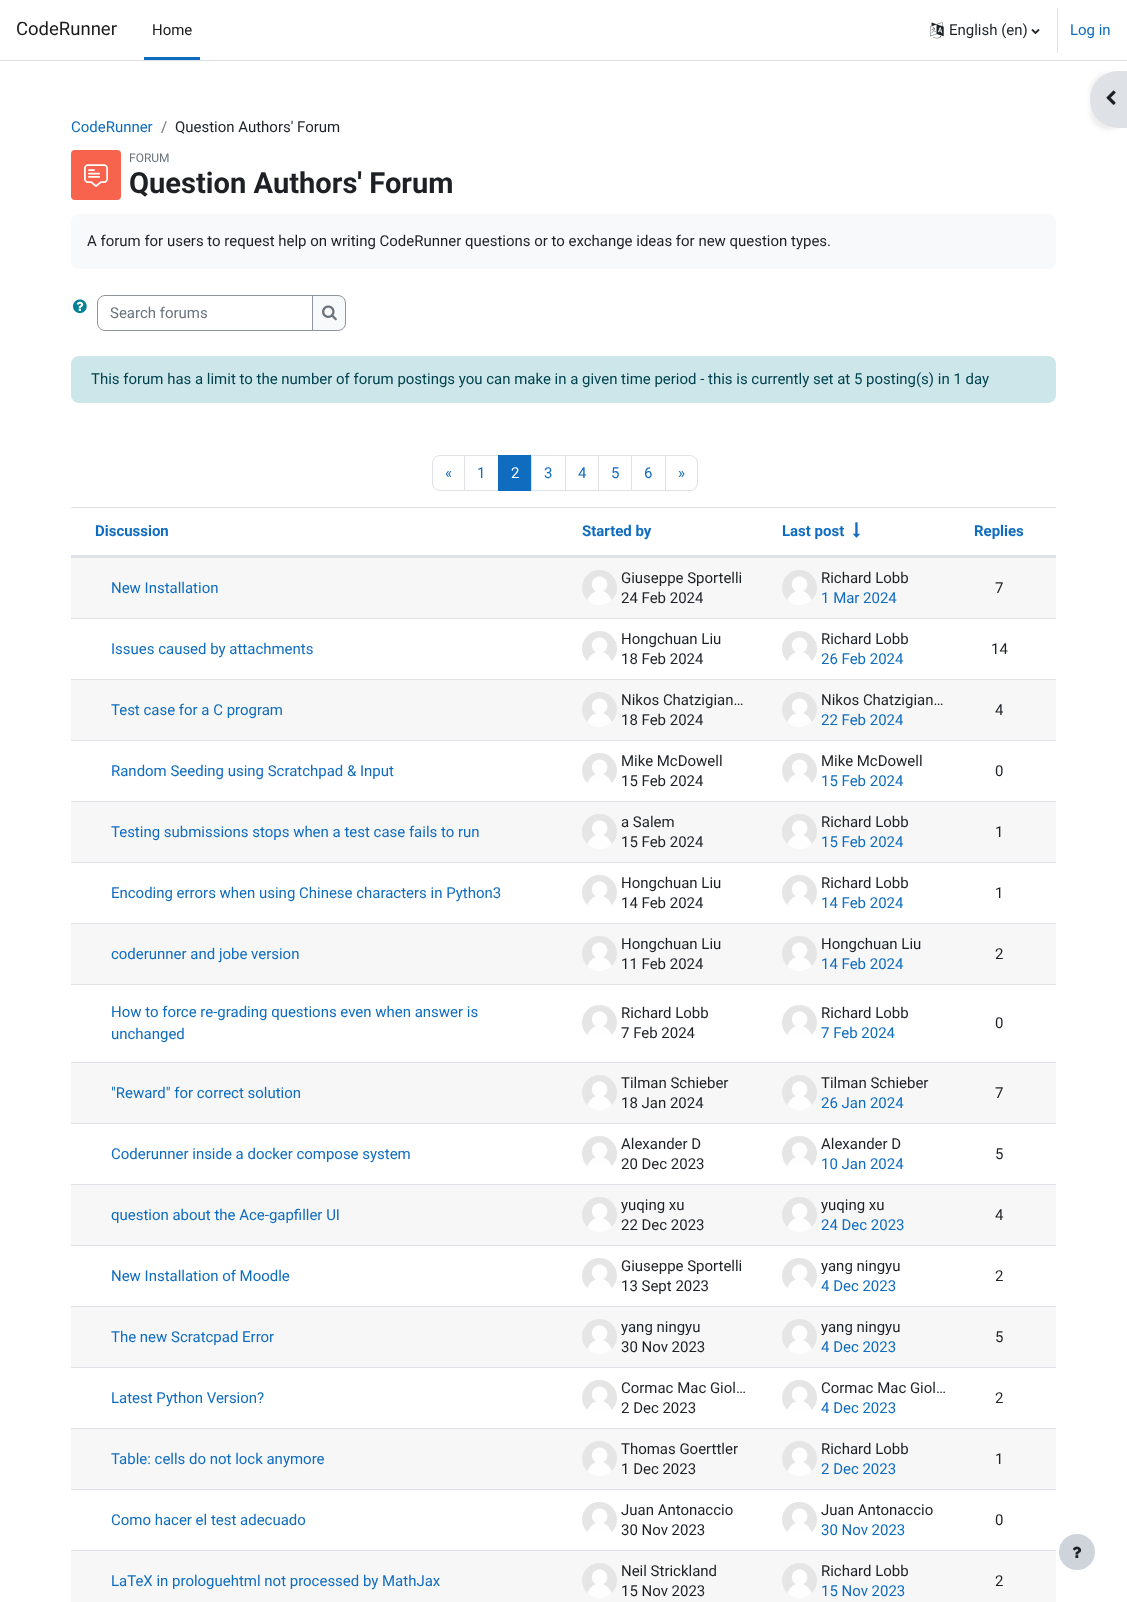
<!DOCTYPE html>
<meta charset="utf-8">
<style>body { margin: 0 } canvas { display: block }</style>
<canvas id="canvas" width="1127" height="1602"></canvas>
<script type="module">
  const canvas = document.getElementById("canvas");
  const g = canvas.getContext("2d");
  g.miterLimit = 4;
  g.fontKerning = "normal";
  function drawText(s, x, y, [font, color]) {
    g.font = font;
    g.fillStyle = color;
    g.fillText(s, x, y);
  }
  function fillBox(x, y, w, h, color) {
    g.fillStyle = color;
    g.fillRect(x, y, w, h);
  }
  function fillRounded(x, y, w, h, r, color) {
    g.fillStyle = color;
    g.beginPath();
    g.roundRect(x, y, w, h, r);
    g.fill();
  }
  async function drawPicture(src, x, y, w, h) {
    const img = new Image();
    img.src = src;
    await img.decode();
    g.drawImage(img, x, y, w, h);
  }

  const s1 = ["18.5px Roboto", "#1A1A1A"];
  const s2 = ["14.97px Roboto", "#1A1A1A"];
  const s3 = ["14.97px Roboto", "#1D2125"];
  const s4 = ["14.97px Roboto", "#0F6CBF"];
  const s5 = ["14.97px Roboto", "#6A737B"];
  const s6 = ["12px Roboto", "#6A737B"];
  const s7 = ["bold 29.1px Roboto", "#1D2125"];
  const s8 = ["14.97px Roboto", "#00434E"];
  const s9 = ["14.97px Roboto", "#FFFFFF"];
  const s10 = ["bold 14.97px Roboto", "#0F6CBF"];

  fillBox(0, 0, 1127, 1602, "#FFFFFF");
  fillBox(0, 60, 1127, 1, "#DEE2E6");
  drawText("CodeRunner", 16, 35, s1);
  fillBox(144, 57, 56, 3, "#0F6CBF");
  drawText("Home", 152, 35, s2);
  await drawPicture("pic1.png", 930, 22, 14, 17);
  drawText("English (en)", 949, 35, s3);
  await drawPicture("pic2.png", 1031, 29, 9, 6);
  fillBox(1057, 8, 1, 45, "#DEE2E6");
  drawText("Log in", 1070, 35, s4);
  g.fillStyle = "rgba(0, 0, 0, 0.07)";
  g.filter = "blur(2px)";
  g.beginPath();
  g.roundRect(1090, 73, 37, 57, 28);
  g.fill();
  g.filter = "none";
  g.fillStyle = "#DEE2E6";
  g.beginPath();
  g.roundRect(1090, 71, 37, 57, [28, 0, 0, 28]);
  g.fill();
  await drawPicture("pic3.png", 1106, 90, 10, 15);
  drawText("CodeRunner", 71, 132, s4);
  drawText("/", 161, 132, s5);
  drawText("Question Authors' Forum", 175, 132, s3);
  fillRounded(71, 150, 50, 50, 4, "#F7634D");
  await drawPicture("pic4.png", 84, 164, 24, 23);
  drawText("FORUM", 129, 162, s6);
  drawText("Question Authors' Forum", 129, 193, s7);
  fillRounded(71, 214, 985, 55, 8, "#F8F9FA");
  drawText("A forum for users to request help on writing CodeRunner questions or to exchange ideas for new question types.", 87, 246, s3);
  await drawPicture("pic5.png", 73, 299, 14, 15);
  g.beginPath();
  g.roundRect(97.5, 295.5, 215, 35, [7.5, 0, 0, 7.5]);
  g.strokeStyle = "#8F959E";
  g.stroke();
  drawText("Search forums", 110, 318, s5);
  g.fillStyle = "#F8F9FA";
  g.beginPath();
  g.roundRect(312.5, 295.5, 33, 35, [0, 7.5, 7.5, 0]);
  g.fill();
  g.stroke();
  await drawPicture("pic6.png", 322, 305, 15, 16);
  fillRounded(71, 356, 985, 47, 8, "#CCE6EA");
  drawText("This forum has a limit to the number of forum postings you can make in a given time period - this is currently set at 5 posting(s) in 1 day", 91, 384, s8);
  g.beginPath();
  g.roundRect(432.5, 455.5, 32, 35, [7.5, 0, 0, 7.5]);
  g.strokeStyle = "#DEE2E6";
  g.stroke();
  drawText("«", 445, 478, s4);
  g.strokeRect(464.5, 455.5, 34, 35);
  drawText("1", 477, 478, s4);
  fillBox(498, 455, 33, 36, "#0F6CBF");
  drawText("2", 511, 478, s9);
  g.strokeRect(531.5, 455.5, 34, 35);
  drawText("3", 544, 478, s4);
  g.strokeRect(565.5, 455.5, 33, 35);
  drawText("4", 578, 478, s4);
  g.strokeRect(598.5, 455.5, 33, 35);
  drawText("5", 611, 478, s4);
  g.strokeRect(631.5, 455.5, 34, 35);
  drawText("6", 644, 478, s4);
  g.fillStyle = "#FFFFFF";
  g.beginPath();
  g.roundRect(665.5, 455.5, 32, 35, [0, 7.5, 7.5, 0]);
  g.fill();
  g.stroke();
  drawText("»", 678, 478, s4);
  fillBox(71, 507, 985, 1, "#DEE2E6");
  fillBox(71, 555, 985, 2, "#DEE2E6");
  drawText("Discussion", 95, 536, s10);
  drawText("Started by", 582, 536, s10);
  drawText("Last post", 782, 536, s10);
  await drawPicture("pic7.png", 853, 522, 7, 16);
  drawText("Replies", 974, 536, s10);
  fillBox(71, 558, 985, 60, "#F7F7F7");
  fillBox(71, 557, 985, 1, "#DEE2E6");
  drawText("New Installation", 111, 593, s4);
  await drawPicture("pic8.png", 582, 570, 35, 35);
  drawText("Giuseppe Sportelli", 621, 583, s3);
  drawText("24 Feb 2024", 621, 603, s3);
  await drawPicture("pic9.png", 782, 570, 35, 35);
  drawText("Richard Lobb", 821, 583, s3);
  drawText("1 Mar 2024", 821, 603, s4);
  drawText("7", 995, 593, s3);
  fillBox(71, 618, 985, 1, "#DEE2E6");
  drawText("Issues caused by attachments", 111, 654, s4);
  await drawPicture("pic10.png", 582, 631, 35, 30);
  drawText("Hongchuan Liu", 621, 644, s3);
  drawText("18 Feb 2024", 621, 664, s3);
  await drawPicture("pic11.png", 782, 631, 35, 30);
  drawText("Richard Lobb", 821, 644, s3);
  drawText("26 Feb 2024", 821, 664, s4);
  drawText("14", 991, 654, s3);
  fillBox(71, 680, 985, 60, "#F7F7F7");
  fillBox(71, 679, 985, 1, "#DEE2E6");
  drawText("Test case for a C program", 111, 715, s4);
  await drawPicture("pic8.png", 582, 692, 35, 35);
  drawText("Nikos Chatzigian…", 621, 705, s3);
  drawText("18 Feb 2024", 621, 725, s3);
  await drawPicture("pic9.png", 782, 692, 35, 35);
  drawText("Nikos Chatzigian…", 821, 705, s3);
  drawText("22 Feb 2024", 821, 725, s4);
  drawText("4", 995, 715, s3);
  fillBox(71, 740, 985, 1, "#DEE2E6");
  drawText("Random Seeding using Scratchpad & Input", 111, 776, s4);
  await drawPicture("pic10.png", 582, 753, 35, 30);
  drawText("Mike McDowell", 621, 766, s3);
  drawText("15 Feb 2024", 621, 786, s3);
  await drawPicture("pic11.png", 782, 753, 35, 30);
  drawText("Mike McDowell", 821, 766, s3);
  drawText("15 Feb 2024", 821, 786, s4);
  drawText("0", 995, 776, s3);
  fillBox(71, 802, 985, 60, "#F7F7F7");
  fillBox(71, 801, 985, 1, "#DEE2E6");
  drawText("Testing submissions stops when a test case fails to run", 111, 837, s4);
  await drawPicture("pic8.png", 582, 814, 35, 35);
  drawText("a Salem", 621, 827, s3);
  drawText("15 Feb 2024", 621, 847, s3);
  await drawPicture("pic9.png", 782, 814, 35, 35);
  drawText("Richard Lobb", 821, 827, s3);
  drawText("15 Feb 2024", 821, 847, s4);
  drawText("1", 995, 837, s3);
  fillBox(71, 862, 985, 1, "#DEE2E6");
  drawText("Encoding errors when using Chinese characters in Python3", 111, 898, s4);
  await drawPicture("pic10.png", 582, 875, 35, 30);
  drawText("Hongchuan Liu", 621, 888, s3);
  drawText("14 Feb 2024", 621, 908, s3);
  await drawPicture("pic11.png", 782, 875, 35, 30);
  drawText("Richard Lobb", 821, 888, s3);
  drawText("14 Feb 2024", 821, 908, s4);
  drawText("1", 995, 898, s3);
  fillBox(71, 924, 985, 60, "#F7F7F7");
  fillBox(71, 923, 985, 1, "#DEE2E6");
  drawText("coderunner and jobe version", 111, 959, s4);
  await drawPicture("pic8.png", 582, 936, 35, 35);
  drawText("Hongchuan Liu", 621, 949, s3);
  drawText("11 Feb 2024", 621, 969, s3);
  await drawPicture("pic9.png", 782, 936, 35, 35);
  drawText("Hongchuan Liu", 821, 949, s3);
  drawText("14 Feb 2024", 821, 969, s4);
  drawText("2", 995, 959, s3);
  fillBox(71, 984, 985, 1, "#DEE2E6");
  drawText("How to force re-grading questions even when answer is", 111, 1017, s4);
  drawText("unchanged", 111, 1039, s4);
  await drawPicture("pic12.png", 582, 1005, 35, 30);
  drawText("Richard Lobb", 621, 1018, s3);
  drawText("7 Feb 2024", 621, 1038, s3);
  await drawPicture("pic13.png", 782, 1005, 35, 30);
  drawText("Richard Lobb", 821, 1018, s3);
  drawText("7 Feb 2024", 821, 1038, s4);
  drawText("0", 995, 1028, s3);
  fillBox(71, 1063, 985, 60, "#F7F7F7");
  fillBox(71, 1062, 985, 1, "#DEE2E6");
  drawText("\"Reward\" for correct solution", 111, 1098, s4);
  await drawPicture("pic8.png", 582, 1075, 35, 35);
  drawText("Tilman Schieber", 621, 1088, s3);
  drawText("18 Jan 2024", 621, 1108, s3);
  await drawPicture("pic9.png", 782, 1075, 35, 35);
  drawText("Tilman Schieber", 821, 1088, s3);
  drawText("26 Jan 2024", 821, 1108, s4);
  drawText("7", 995, 1098, s3);
  fillBox(71, 1123, 985, 1, "#DEE2E6");
  drawText("Coderunner inside a docker compose system", 111, 1159, s4);
  await drawPicture("pic10.png", 582, 1136, 35, 30);
  drawText("Alexander D", 621, 1149, s3);
  drawText("20 Dec 2023", 621, 1169, s3);
  await drawPicture("pic11.png", 782, 1136, 35, 30);
  drawText("Alexander D", 821, 1149, s3);
  drawText("10 Jan 2024", 821, 1169, s4);
  drawText("5", 995, 1159, s3);
  fillBox(71, 1185, 985, 60, "#F7F7F7");
  fillBox(71, 1184, 985, 1, "#DEE2E6");
  drawText("question about the Ace-gapfiller UI", 111, 1220, s4);
  await drawPicture("pic8.png", 582, 1197, 35, 35);
  g.save();
  g.beginPath();
  g.rect(621, 1197, 84, 16);
  g.clip();
  drawText("yuqing xu", 621, 1210, s3);
  g.restore();
  drawText("22 Dec 2023", 621, 1230, s3);
  await drawPicture("pic9.png", 782, 1197, 35, 35);
  g.save();
  g.beginPath();
  g.rect(821, 1197, 84, 16);
  g.clip();
  drawText("yuqing xu", 821, 1210, s3);
  g.restore();
  drawText("24 Dec 2023", 821, 1230, s4);
  drawText("4", 995, 1220, s3);
  fillBox(71, 1245, 985, 1, "#DEE2E6");
  drawText("New Installation of Moodle", 111, 1281, s4);
  await drawPicture("pic14.png", 582, 1258, 35, 30);
  drawText("Giuseppe Sportelli", 621, 1271, s3);
  drawText("13 Sept 2023", 621, 1291, s3);
  await drawPicture("pic15.png", 782, 1258, 35, 30);
  g.save();
  g.beginPath();
  g.rect(821, 1258, 80, 16);
  g.clip();
  drawText("yang ningyu", 821, 1271, s3);
  g.restore();
  drawText("4 Dec 2023", 821, 1291, s4);
  drawText("2", 995, 1281, s3);
  fillBox(71, 1307, 985, 60, "#F7F7F7");
  fillBox(71, 1306, 985, 1, "#DEE2E6");
  drawText("The new Scratcpad Error", 111, 1342, s4);
  await drawPicture("pic8.png", 582, 1319, 35, 35);
  g.save();
  g.beginPath();
  g.rect(621, 1319, 84, 16);
  g.clip();
  drawText("yang ningyu", 621, 1332, s3);
  g.restore();
  drawText("30 Nov 2023", 621, 1352, s3);
  await drawPicture("pic9.png", 782, 1319, 35, 35);
  g.save();
  g.beginPath();
  g.rect(821, 1319, 80, 16);
  g.clip();
  drawText("yang ningyu", 821, 1332, s3);
  g.restore();
  drawText("4 Dec 2023", 821, 1352, s4);
  drawText("5", 995, 1342, s3);
  fillBox(71, 1367, 985, 1, "#DEE2E6");
  drawText("Latest Python Version?", 111, 1403, s4);
  await drawPicture("pic10.png", 582, 1380, 35, 30);
  drawText("Cormac Mac Giol…", 621, 1393, s3);
  drawText("2 Dec 2023", 621, 1413, s3);
  await drawPicture("pic11.png", 782, 1380, 35, 30);
  drawText("Cormac Mac Giol…", 821, 1393, s3);
  drawText("4 Dec 2023", 821, 1413, s4);
  drawText("2", 995, 1403, s3);
  fillBox(71, 1429, 985, 60, "#F7F7F7");
  fillBox(71, 1428, 985, 1, "#DEE2E6");
  drawText("Table: cells do not lock anymore", 111, 1464, s4);
  await drawPicture("pic16.png", 582, 1441, 35, 35);
  drawText("Thomas Goerttler", 621, 1454, s3);
  drawText("1 Dec 2023", 621, 1474, s3);
  await drawPicture("pic17.png", 782, 1441, 35, 35);
  drawText("Richard Lobb", 821, 1454, s3);
  drawText("2 Dec 2023", 821, 1474, s4);
  drawText("1", 995, 1464, s3);
  fillBox(71, 1489, 985, 1, "#DEE2E6");
  drawText("Como hacer el test adecuado", 111, 1525, s4);
  await drawPicture("pic18.png", 582, 1502, 35, 30);
  drawText("Juan Antonaccio", 621, 1515, s3);
  drawText("30 Nov 2023", 621, 1535, s3);
  await drawPicture("pic19.png", 782, 1502, 35, 30);
  drawText("Juan Antonaccio", 821, 1515, s3);
  drawText("30 Nov 2023", 821, 1535, s4);
  drawText("0", 995, 1525, s3);
  fillBox(71, 1551, 985, 51, "#F7F7F7");
  fillBox(71, 1550, 985, 1, "#DEE2E6");
  drawText("LaTeX in prologuehtml not processed by MathJax", 111, 1586, s4);
  await drawPicture("pic8.png", 582, 1563, 35, 35);
  drawText("Neil Strickland", 621, 1576, s3);
  drawText("15 Nov 2023", 621, 1596, s3);
  await drawPicture("pic9.png", 782, 1563, 35, 35);
  drawText("Richard Lobb", 821, 1576, s3);
  drawText("15 Nov 2023", 821, 1596, s4);
  drawText("2", 995, 1586, s3);
  g.fillStyle = "#CED4DA";
  g.beginPath();
  g.arc(1077, 1552, 18, 0, Math.PI * 2);
  g.fill();
  await drawPicture("pic20.png", 1072, 1546, 10, 12);
</script>
